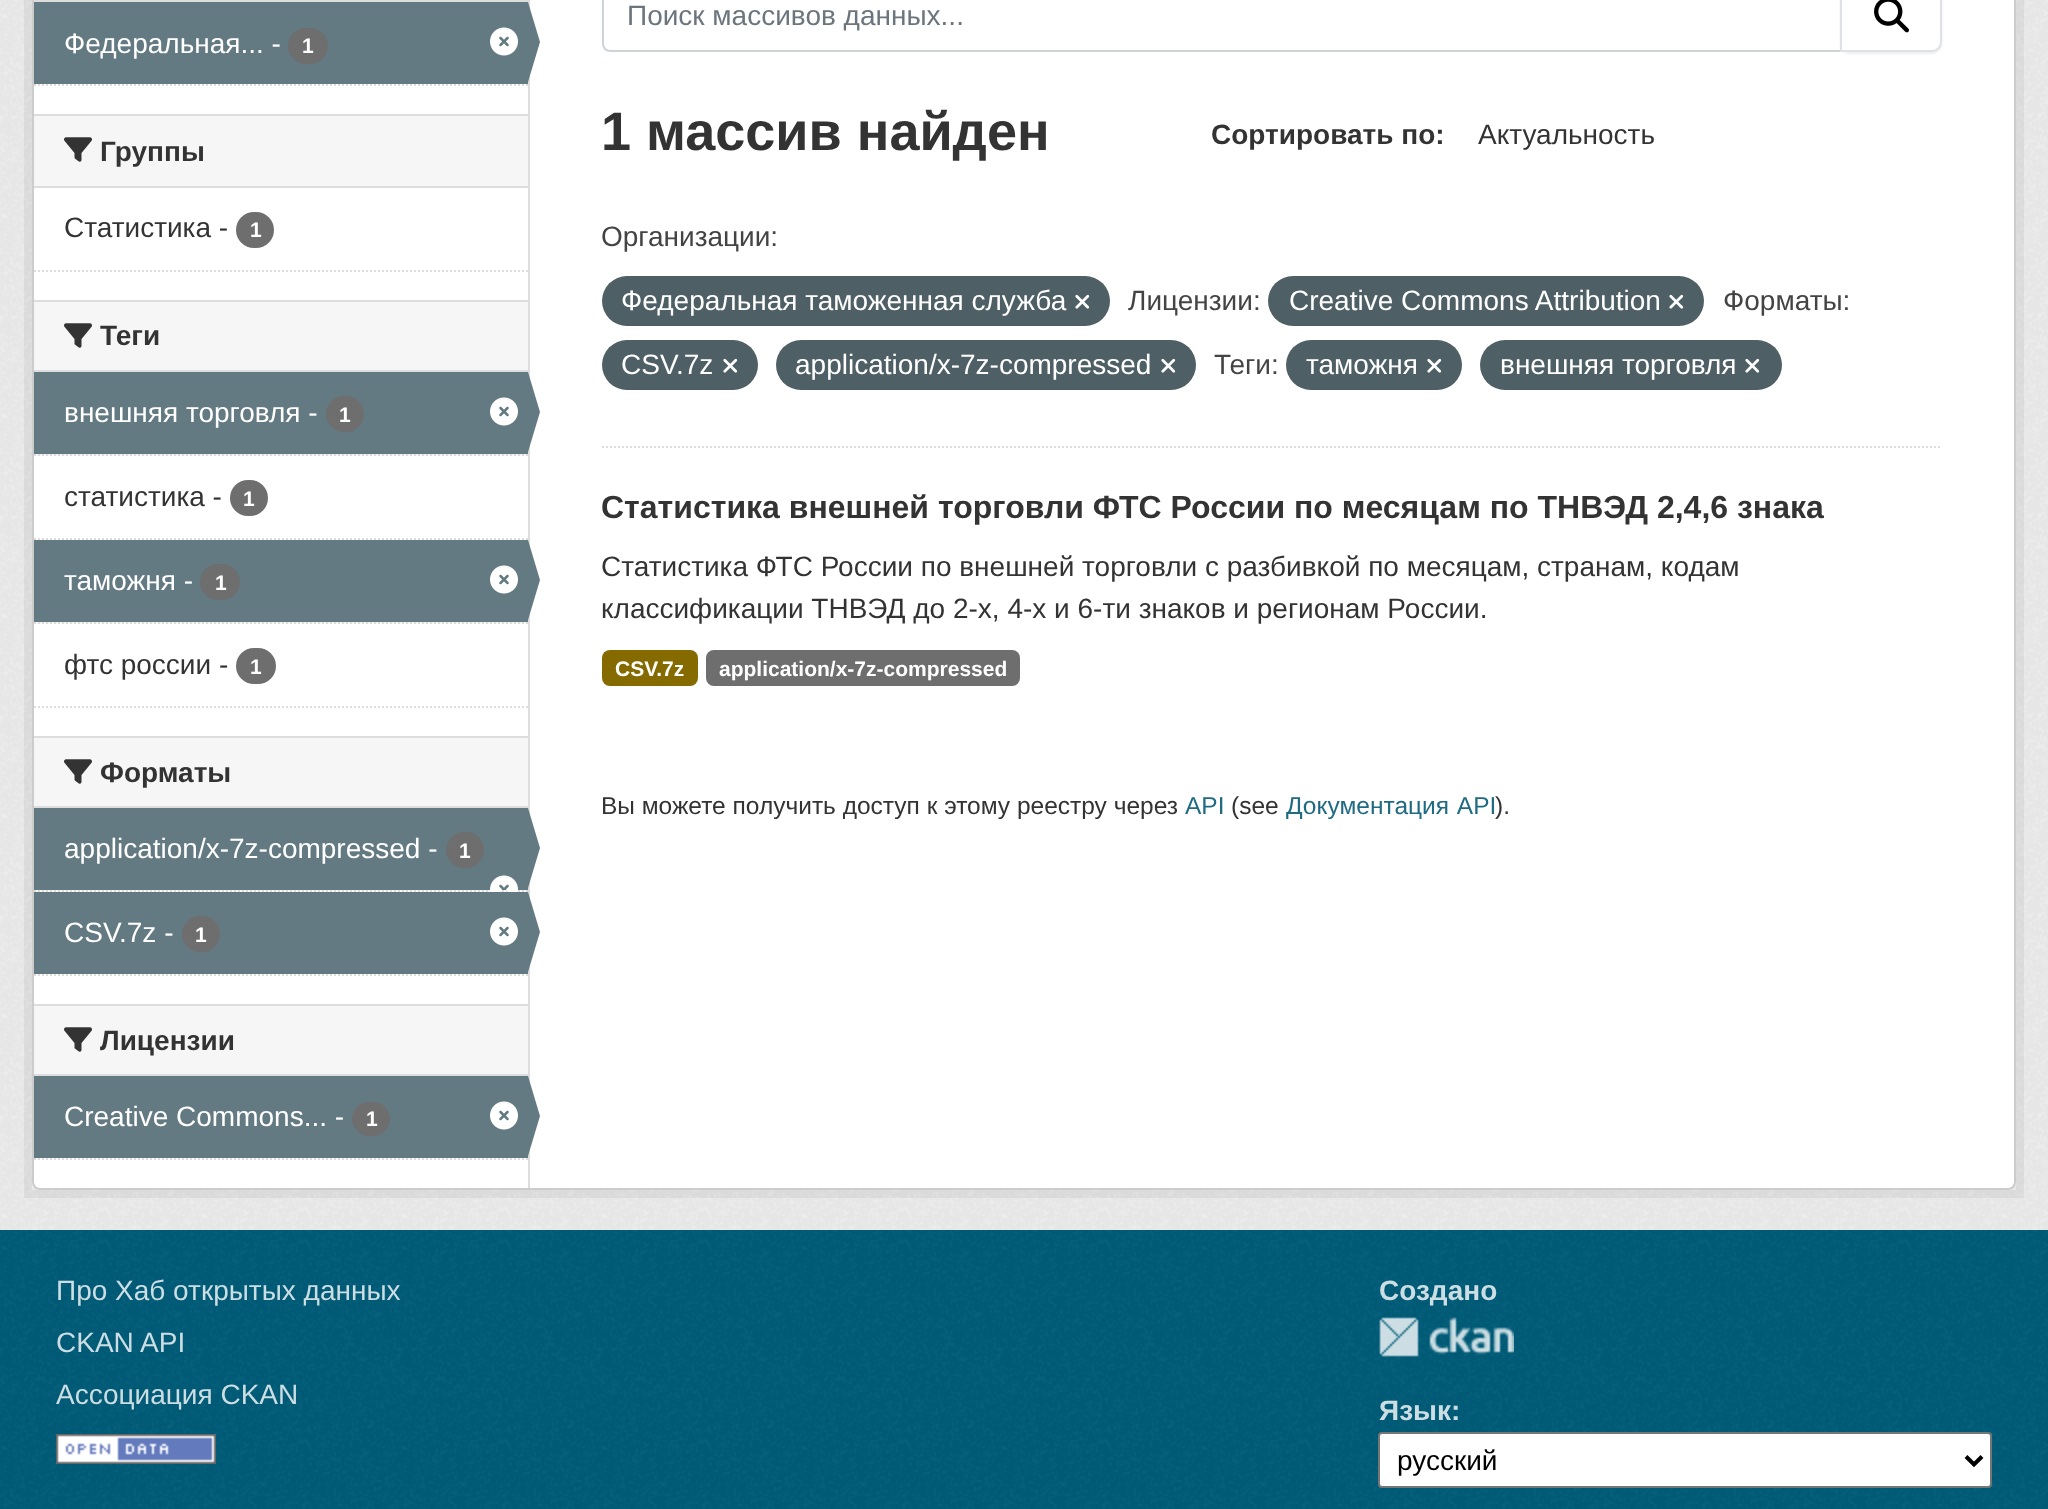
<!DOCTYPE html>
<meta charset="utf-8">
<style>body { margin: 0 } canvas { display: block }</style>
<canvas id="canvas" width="2048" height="1509"></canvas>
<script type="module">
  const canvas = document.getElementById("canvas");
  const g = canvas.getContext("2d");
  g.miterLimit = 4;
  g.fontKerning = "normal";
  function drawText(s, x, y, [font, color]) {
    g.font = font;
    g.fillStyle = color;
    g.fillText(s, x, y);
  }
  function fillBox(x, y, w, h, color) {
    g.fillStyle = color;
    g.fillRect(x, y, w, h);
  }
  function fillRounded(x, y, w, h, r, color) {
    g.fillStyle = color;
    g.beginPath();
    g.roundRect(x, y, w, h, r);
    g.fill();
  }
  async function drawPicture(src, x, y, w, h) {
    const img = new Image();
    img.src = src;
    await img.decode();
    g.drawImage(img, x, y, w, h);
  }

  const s1 = ["28px Liberation Sans", "#FFFFFF"];
  const s2 = ["bold 21px Liberation Sans", "#FFFFFF"];
  const s3 = ["bold 28px Liberation Sans", "#333333"];
  const s4 = ["28px Liberation Sans", "#333333"];
  const s5 = ["28px Liberation Sans", "#6C757D"];
  const s6 = ["bold 54px Liberation Sans", "#333333"];
  const s7 = ["28px Liberation Sans", "#444444"];
  const s8 = ["bold 32px Liberation Sans", "#333333"];
  const s9 = ["24.5px Liberation Sans", "#333333"];
  const s10 = ["24.5px Liberation Sans", "#206B82"];
  const s11 = ["28px Liberation Sans", "#CCDEE3"];
  const s12 = ["bold 28px Liberation Sans", "#CCDEE3"];
  const s13 = ["28px Liberation Sans", "#000000"];

  fillBox(0, 0, 2048, 1509, "#005D7A");
  fillBox(0, 0, 2048, 1230, "#EEEEEE");
  await drawPicture("pic1.png", 0, 0, 2048, 1230);
  g.strokeStyle = "rgba(0, 0, 0, 0.05)";
  g.lineWidth = 8;
  g.strokeRect(28, -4, 1992, 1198);
  g.fillStyle = "#FFFFFF";
  g.beginPath();
  g.roundRect(33, -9, 1982, 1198, 7);
  g.fill();
  g.strokeStyle = "#CCCCCC";
  g.lineWidth = 2;
  g.stroke();
  fillBox(34, 0, 494, 2, "#DDDDDD");
  fillBox(34, 2, 494, 82, "#647A82");
  drawText("Федеральная... -", 64, 53, s1);
  fillRounded(288, 28, 40, 36, 18, "#6E6E6E");
  drawText("1", 302, 53, s2);
  await drawPicture("pic2.png", 490, 27, 28, 29);
  fillBox(528, 0, 2, 1188, "#DDDDDD");
  g.fillStyle = "#647A82";
  g.beginPath();
  g.moveTo(528, 82);
  g.lineTo(528, 2);
  g.lineTo(540, 42);
  g.closePath();
  g.fill();
  g.beginPath();
  g.moveTo(34, 85);
  g.lineTo(528, 85);
  g.strokeStyle = "#DDDDDD";
  g.setLineDash([2, 2]);
  g.stroke();
  fillBox(34, 116, 494, 70, "#F6F6F6");
  fillBox(34, 114, 494, 2, "#DDDDDD");
  fillBox(34, 186, 494, 2, "#DDDDDD");
  await drawPicture("pic3.png", 64, 137, 28, 25);
  drawText("Группы", 100, 161, s3);
  drawText("Статистика -", 64, 237, s4);
  fillRounded(236, 212, 38, 36, 18, "#6E6E6E");
  drawText("1", 250, 237, s2);
  g.beginPath();
  g.moveTo(34, 271);
  g.lineTo(528, 271);
  g.stroke();
  fillBox(34, 302, 494, 68, "#F6F6F6");
  fillBox(34, 300, 494, 2, "#DDDDDD");
  fillBox(34, 370, 494, 2, "#DDDDDD");
  await drawPicture("pic3.png", 64, 323, 28, 25);
  drawText("Теги", 100, 345, s3);
  fillBox(36, 454, 490, 2, "#F6F6F6");
  g.beginPath();
  g.moveTo(34, 455);
  g.lineTo(528, 455);
  g.stroke();
  fillBox(34, 372, 494, 82, "#647A82");
  drawText("внешняя торговля -", 64, 422, s1);
  fillRounded(326, 396, 38, 36, 18, "#6E6E6E");
  drawText("1", 339, 422, s2);
  await drawPicture("pic2.png", 490, 397, 28, 29);
  g.fillStyle = "#647A82";
  g.beginPath();
  g.moveTo(528, 452);
  g.lineTo(528, 372);
  g.lineTo(540, 412);
  g.closePath();
  g.fill();
  g.beginPath();
  g.moveTo(34, 539);
  g.lineTo(528, 539);
  g.stroke();
  drawText("статистика -", 64, 506, s4);
  fillRounded(230, 480, 38, 36, 18, "#6E6E6E");
  drawText("1", 243, 506, s2);
  fillBox(36, 622, 490, 2, "#F6F6F6");
  g.beginPath();
  g.moveTo(34, 623);
  g.lineTo(528, 623);
  g.stroke();
  fillBox(34, 540, 494, 82, "#647A82");
  drawText("таможня -", 64, 590, s1);
  fillRounded(200, 564, 40, 36, 18, "#6E6E6E");
  drawText("1", 215, 590, s2);
  await drawPicture("pic2.png", 490, 565, 28, 29);
  g.fillStyle = "#647A82";
  g.beginPath();
  g.moveTo(528, 620);
  g.lineTo(528, 540);
  g.lineTo(540, 580);
  g.closePath();
  g.fill();
  drawText("фтс россии -", 64, 674, s4);
  fillRounded(236, 648, 40, 36, 18, "#6E6E6E");
  drawText("1", 250, 674, s2);
  g.beginPath();
  g.moveTo(34, 707);
  g.lineTo(528, 707);
  g.stroke();
  fillBox(34, 738, 494, 68, "#F6F6F6");
  fillBox(34, 736, 494, 2, "#DDDDDD");
  fillBox(34, 806, 494, 2, "#DDDDDD");
  await drawPicture("pic3.png", 64, 759, 28, 25);
  drawText("Форматы", 100, 782, s3);
  fillBox(36, 890, 490, 2, "#F6F6F6");
  g.beginPath();
  g.moveTo(34, 891);
  g.lineTo(528, 891);
  g.stroke();
  fillBox(34, 808, 494, 82, "#647A82");
  drawText("application/x-7z-compressed -", 64, 858, s1);
  fillRounded(446, 832, 38, 36, 18, "#6E6E6E");
  drawText("1", 459, 858, s2);
  g.fillStyle = "#647A82";
  g.beginPath();
  g.moveTo(528, 888);
  g.lineTo(528, 808);
  g.lineTo(540, 848);
  g.closePath();
  g.fill();
  await drawPicture("pic4.png", 490, 875, 28, 17);
  fillBox(34, 892, 494, 82, "#647A82");
  drawText("CSV.7z -", 64, 942, s1);
  fillRounded(182, 916, 38, 36, 18, "#6E6E6E");
  drawText("1", 195, 942, s2);
  await drawPicture("pic2.png", 490, 917, 28, 29);
  g.fillStyle = "#647A82";
  g.beginPath();
  g.moveTo(528, 972);
  g.lineTo(528, 892);
  g.lineTo(540, 932);
  g.closePath();
  g.fill();
  g.beginPath();
  g.moveTo(34, 975);
  g.lineTo(528, 975);
  g.stroke();
  fillBox(34, 1006, 494, 68, "#F6F6F6");
  fillBox(34, 1004, 494, 2, "#DDDDDD");
  fillBox(34, 1074, 494, 2, "#DDDDDD");
  await drawPicture("pic3.png", 64, 1027, 28, 25);
  drawText("Лицензии", 100, 1050, s3);
  fillBox(34, 1076, 494, 82, "#647A82");
  drawText("Creative Commons... -", 64, 1126, s1);
  fillRounded(352, 1102, 38, 34, 17, "#6E6E6E");
  drawText("1", 366, 1126, s2);
  await drawPicture("pic2.png", 490, 1101, 28, 29);
  g.fillStyle = "#647A82";
  g.beginPath();
  g.moveTo(528, 1156);
  g.lineTo(528, 1076);
  g.lineTo(540, 1116);
  g.closePath();
  g.fill();
  g.beginPath();
  g.moveTo(34, 1159);
  g.lineTo(528, 1159);
  g.stroke();
  g.beginPath();
  g.moveTo(602, 447);
  g.lineTo(1942, 447);
  g.stroke();
  g.beginPath();
  g.moveTo(610, -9);
  g.lineTo(1841, -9);
  g.lineTo(1841, 51);
  g.lineTo(610, 51);
  g.bezierCurveTo(606, 51, 603, 48, 603, 44);
  g.lineTo(603, -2);
  g.bezierCurveTo(603, -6, 606, -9, 610, -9);
  g.closePath();
  g.strokeStyle = "#CED4DA";
  g.setLineDash([]);
  g.stroke();
  drawText("Поиск массивов данных...", 627, 25, s5);
  g.fillStyle = "rgba(0, 0, 0, 0.07)";
  g.filter = "blur(1px)";
  g.beginPath();
  g.roundRect(1840, -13, 102, 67, 10);
  g.fill();
  g.filter = "none";
  g.fillStyle = "#FFFFFF";
  g.beginPath();
  g.moveTo(1841, -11);
  g.lineTo(1932, -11);
  g.bezierCurveTo(1937, -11, 1941, -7, 1941, -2);
  g.lineTo(1941, 42);
  g.bezierCurveTo(1941, 47, 1937, 51, 1932, 51);
  g.lineTo(1841, 51);
  g.closePath();
  g.fill();
  g.strokeStyle = "#DEE2E6";
  g.stroke();
  await drawPicture("pic5.png", 1874, 0, 35, 33);
  drawText("1 массив найден", 601, 150, s6);
  drawText("Сортировать по:", 1211, 144, s3);
  drawText("Актуальность", 1478, 144, s4);
  drawText("Организации:", 601, 246, s7);
  fillRounded(602, 276, 508, 50, 25, "#4E5F65");
  drawText("Федеральная таможенная служба", 621, 310, s1);
  await drawPicture("pic6.png", 1075, 294, 15, 15);
  drawText("Лицензии:", 1128, 310, s7);
  fillRounded(1268, 276, 436, 50, 25, "#4E5F65");
  drawText("Creative Commons Attribution", 1289, 310, s1);
  await drawPicture("pic6.png", 1669, 294, 15, 15);
  drawText("Форматы:", 1723, 310, s7);
  fillRounded(602, 340, 156, 50, 25, "#4E5F65");
  drawText("CSV.7z", 621, 374, s1);
  await drawPicture("pic6.png", 723, 358, 15, 15);
  fillRounded(776, 340, 420, 50, 25, "#4E5F65");
  drawText("application/x-7z-compressed", 795, 374, s1);
  await drawPicture("pic6.png", 1161, 358, 15, 15);
  drawText("Теги:", 1214, 374, s7);
  fillRounded(1286, 340, 176, 50, 25, "#4E5F65");
  drawText("таможня", 1306, 374, s1);
  await drawPicture("pic6.png", 1427, 358, 15, 15);
  fillRounded(1480, 340, 302, 50, 25, "#4E5F65");
  drawText("внешняя торговля", 1500, 374, s1);
  await drawPicture("pic6.png", 1745, 358, 15, 15);
  drawText("Статистика внешней торговли ФТС России по месяцам по ТНВЭД 2,4,6 знака", 601, 518, s8);
  drawText("Статистика ФТС России по внешней торговли с разбивкой по месяцам, странам, кодам", 601, 576, s4);
  drawText("классификации ТНВЭД до 2-х, 4-х и 6-ти знаков и регионам России.", 601, 618, s4);
  fillRounded(602, 650, 96, 36, 8, "#856A00");
  drawText("CSV.7z", 615, 676, s2);
  fillRounded(706, 650, 314, 36, 8, "#6E6E6E");
  drawText("application/x-7z-compressed", 719, 676, s2);
  drawText("Вы можете получить доступ к этому реестру через", 601, 814, s9);
  drawText("API", 1185, 814, s10);
  drawText("(see", 1231, 814, s9);
  g.wordSpacing = "1px";
  drawText("Документация API", 1286, 814, s10);
  g.wordSpacing = "0px";
  drawText(").", 1495, 814, s9);
  await drawPicture("pic7.png", 0, 1230, 2048, 279);
  drawText("Про Хаб открытых данных", 56, 1300, s11);
  drawText("CKAN API", 56, 1352, s11);
  drawText("Ассоциация CKAN", 56, 1404, s11);
  await drawPicture("pic8.png", 56, 1434, 160, 30);
  drawText("Создано", 1379, 1300, s12);
  await drawPicture("pic9.png", 1379, 1317, 135, 40);
  drawText("Язык:", 1379, 1420, s12);
  g.fillStyle = "#FFFFFF";
  g.beginPath();
  g.roundRect(1379, 1433, 612, 54, 3);
  g.fill();
  g.strokeStyle = "#767676";
  g.stroke();
  g.beginPath();
  g.moveTo(1966, 1456.5);
  g.lineTo(1974, 1464.5);
  g.lineTo(1982, 1456.5);
  g.strokeStyle = "#000000";
  g.lineWidth = 4;
  g.stroke();
  drawText("русский", 1397, 1470, s13);
</script>
